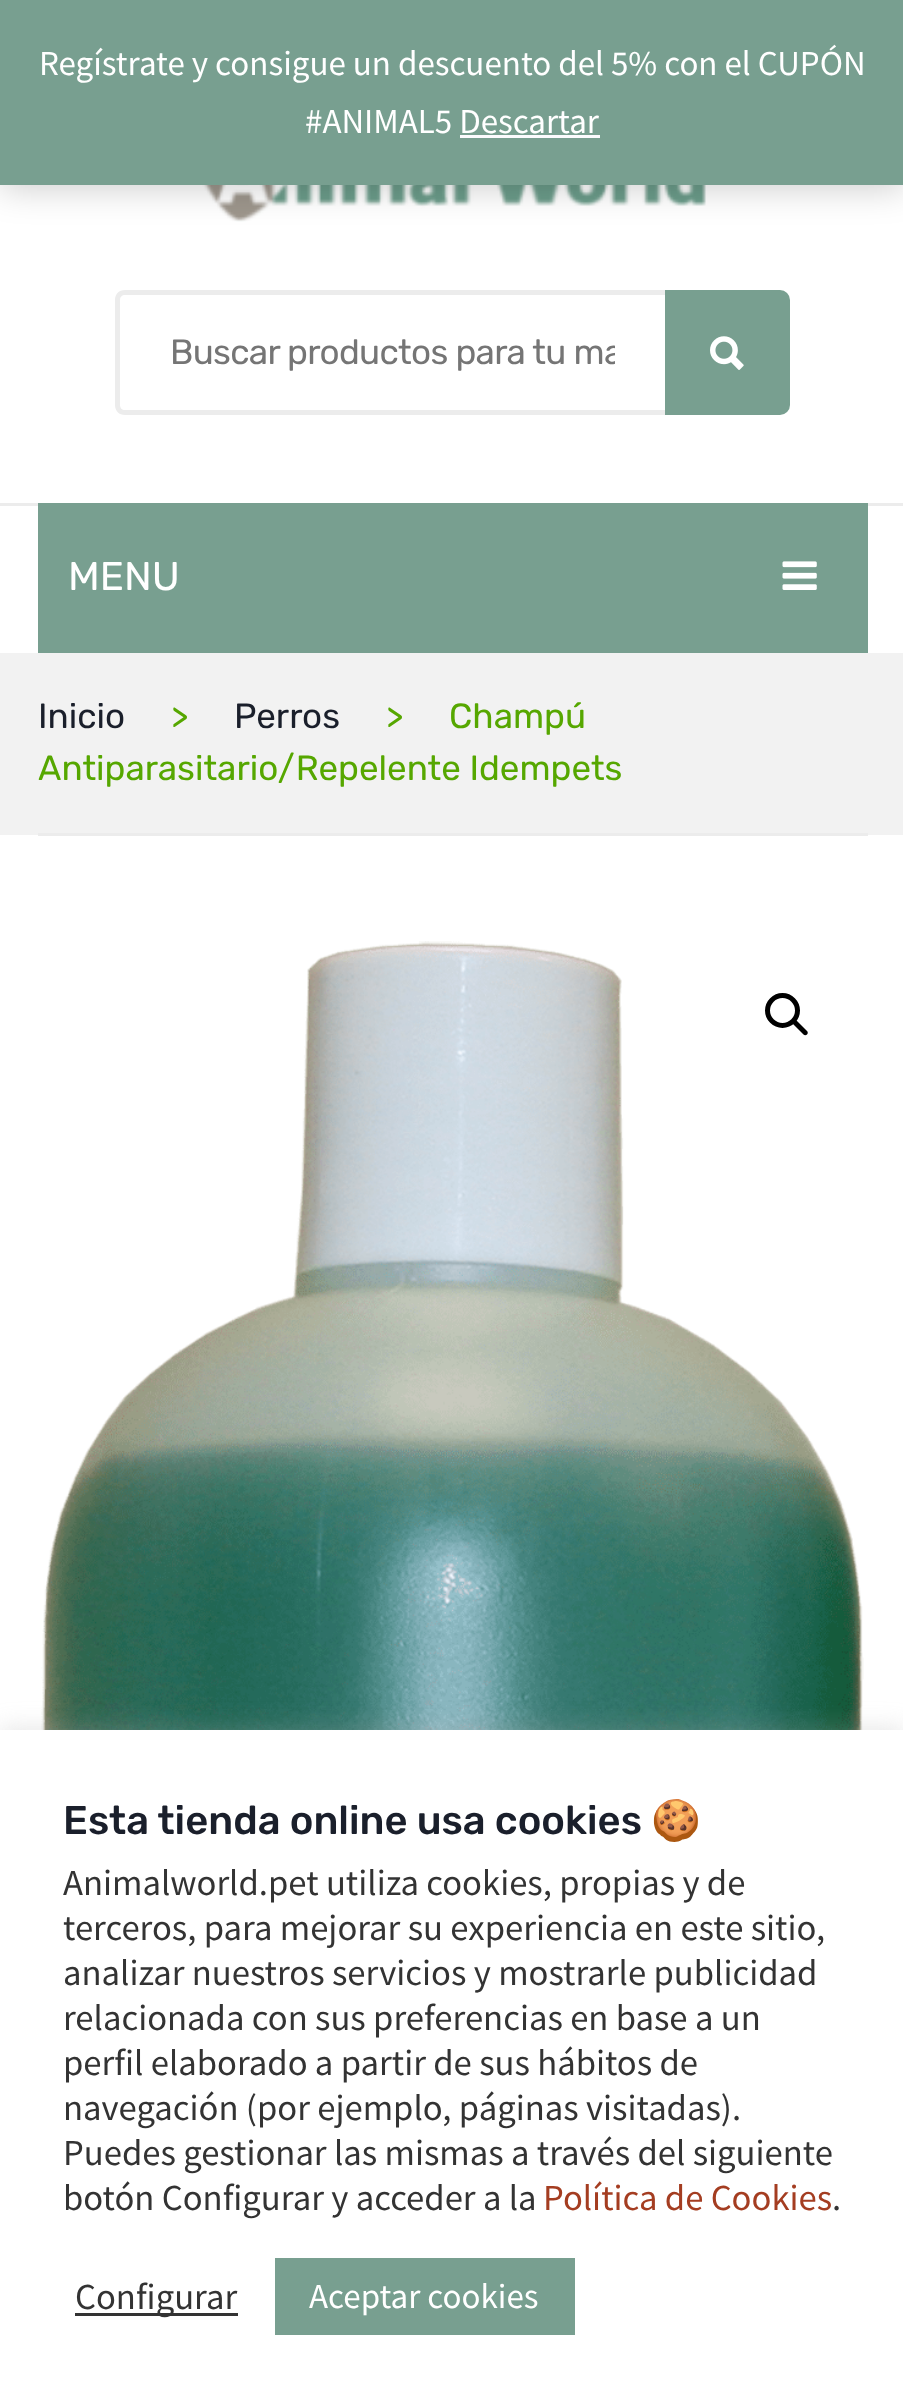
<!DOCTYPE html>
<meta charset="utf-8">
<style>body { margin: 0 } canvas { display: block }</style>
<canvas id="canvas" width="903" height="2408"></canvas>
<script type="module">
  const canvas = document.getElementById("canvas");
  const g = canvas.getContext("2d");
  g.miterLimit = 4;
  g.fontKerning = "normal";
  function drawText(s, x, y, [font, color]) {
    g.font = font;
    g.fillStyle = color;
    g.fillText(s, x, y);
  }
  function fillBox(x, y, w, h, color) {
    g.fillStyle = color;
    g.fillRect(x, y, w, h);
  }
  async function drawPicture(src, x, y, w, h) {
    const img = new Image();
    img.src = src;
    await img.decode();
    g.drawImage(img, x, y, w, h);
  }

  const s1 = ["35px Source Sans Pro", "#FFFFFF"];
  const s2 = ["35px Rubik", "#757575"];
  const s3 = ["40px Rubik", "#FFFFFF"];
  const s4 = ["35px Rubik", "#1A1F2B"];
  const s5 = ["35px Rubik", "#56A700"];
  const s6 = ["500 40px Rubik", "#1A1F2B"];
  const s7 = ["40px Noto Color Emoji", "#1A1F2B"];
  const s8 = ["36.7px Source Sans Pro", "#333333"];
  const s9 = ["36.7px Source Sans Pro", "#A43D21"];

  fillBox(0, 0, 903, 2408, "#FFFFFF");
  await drawPicture("pic1.png", 202, 185, 504, 37);
  g.fillStyle = "rgba(0, 0, 0, 0.2)";
  g.filter = "blur(17.5px)";
  g.beginPath();
  g.rect(0, 3, 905, 185);
  g.fill();
  g.filter = "none";
  fillBox(0, 0, 903, 185, "#789F90");
  drawText("Regístrate y consigue un descuento del 5% con el CUPÓN", 39, 75, s1);
  drawText("#ANIMAL5 Descartar", 305, 133, s1);
  fillBox(460, 135, 140, 3, "#FCFBFE");
  g.fillStyle = "#ECECEC";
  g.beginPath();
  g.moveTo(125, 290);
  g.lineTo(665, 290);
  g.lineTo(665, 415);
  g.lineTo(125, 415);
  g.bezierCurveTo(119, 415, 115, 411, 115, 405);
  g.lineTo(115, 300);
  g.bezierCurveTo(115, 294, 119, 290, 125, 290);
  g.closePath();
  g.moveTo(125, 295);
  g.lineTo(665, 295);
  g.lineTo(665, 410);
  g.lineTo(125, 410);
  g.bezierCurveTo(122, 410, 120, 408, 120, 405);
  g.lineTo(120, 300);
  g.bezierCurveTo(120, 297, 122, 295, 125, 295);
  g.closePath();
  g.fill("evenodd");
  g.save();
  g.beginPath();
  g.rect(170, 333, 445, 42);
  g.clip();
  g.letterSpacing = "-0.7px";
  drawText("Buscar productos para tu ma", 170, 364, s2);
  g.restore();
  g.fillStyle = "#789F90";
  g.beginPath();
  g.roundRect(665, 290, 125, 125, [0, 10, 10, 0]);
  g.fill();
  await drawPicture("pic2.png", 710, 336, 34, 34);
  fillBox(0, 503, 903, 3, "#ECECEC");
  fillBox(38, 503, 830, 150, "#789F90");
  drawText("MENU", 68, 590, s3);
  await drawPicture("pic3.png", 782, 561, 35, 29);
  fillBox(0, 653, 903, 182, "#F2F2F2");
  fillBox(38, 833, 830, 3, "#ECECEC");
  drawText("Inicio", 38, 728, s4);
  drawText(">", 171, 728, s5);
  drawText("Perros", 234, 728, s4);
  drawText(">", 386, 728, s5);
  drawText("Champú", 449, 728, s5);
  drawText("Antiparasitario/Repelente Idempets", 38, 780, s5);
  await drawPicture("pic4.png", 41, 941, 823, 789);
  g.beginPath();
  g.arc(782.5, 1010.5, 15, 0, Math.PI * 2);
  g.strokeStyle = "#000000";
  g.lineWidth = 5;
  g.stroke();
  g.fillStyle = "#000000";
  g.beginPath();
  g.moveTo(793, 1020.5);
  g.bezierCurveTo(794, 1019.5, 795.5, 1019.5, 796.5, 1020.5);
  g.lineTo(807, 1031);
  g.bezierCurveTo(808, 1032, 808, 1033.5, 807, 1034.5);
  g.bezierCurveTo(806, 1035.5, 804.5, 1035.5, 803.5, 1034.5);
  g.lineTo(793, 1024);
  g.bezierCurveTo(792, 1023, 792, 1021.5, 793, 1020.5);
  g.closePath();
  g.fill();
  g.fillStyle = "rgba(172, 171, 171, 0.3)";
  g.filter = "blur(12.5px)";
  g.beginPath();
  g.rect(0, 1728, 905, 680);
  g.fill();
  g.filter = "none";
  fillBox(0, 1730, 903, 678, "#FFFFFF");
  drawText("Esta tienda online usa cookies", 63, 1834, s6);
  drawText("🍪", 651, 1834, s7);
  drawText("Animalworld.pet utiliza cookies, propias y de", 63, 1895, s8);
  drawText("terceros, para mejorar su experiencia en este sitio,", 63, 1940, s8);
  drawText("analizar nuestros servicios y mostrarle publicidad", 63, 1985, s8);
  drawText("relacionada con sus preferencias en base a un", 63, 2030, s8);
  drawText("perfil elaborado a partir de sus hábitos de", 63, 2075, s8);
  drawText("navegación (por ejemplo, páginas visitadas).", 63, 2120, s8);
  drawText("Puedes gestionar las mismas a través del siguiente", 63, 2165, s8);
  drawText("botón Configurar y acceder a la", 63, 2210, s8);
  drawText("Política de Cookies", 543, 2210, s9);
  drawText(".", 832, 2210, s8);
  fillBox(75, 2313, 163, 3, "#333333");
  drawText("Configurar", 75, 2309, s8);
  fillBox(275, 2258, 300, 77, "#789F90");
  drawText("Aceptar cookies", 309, 2308, s1);
</script>
